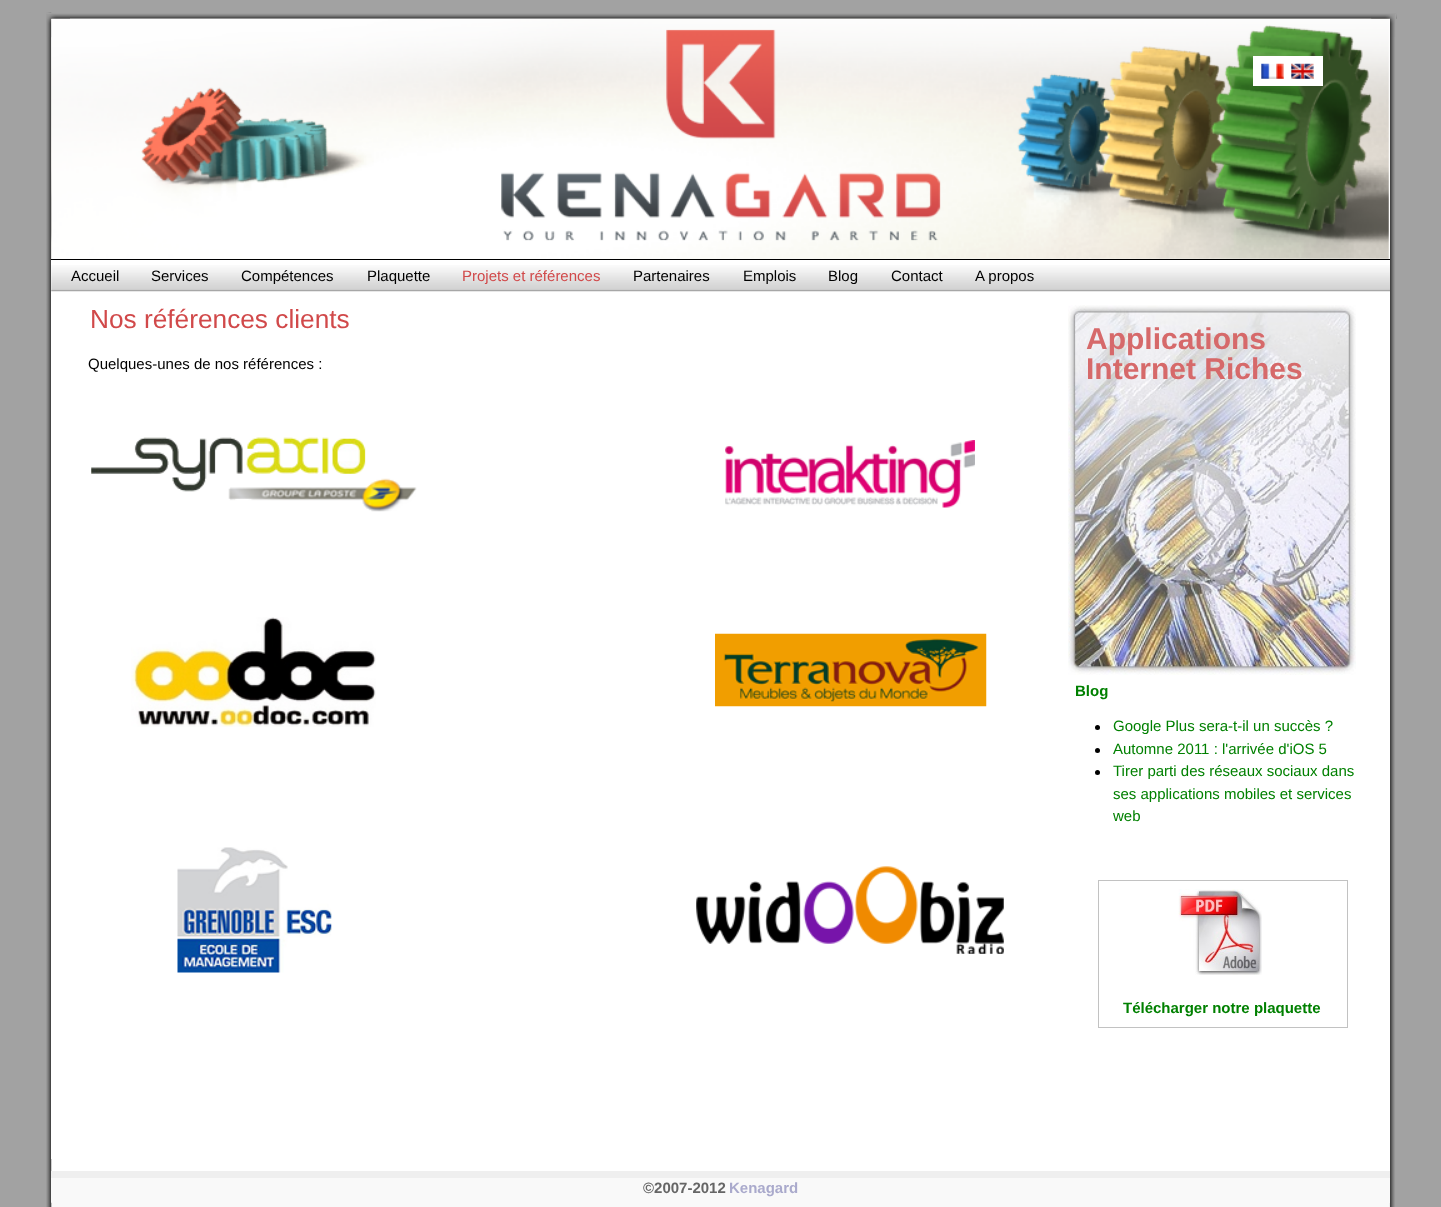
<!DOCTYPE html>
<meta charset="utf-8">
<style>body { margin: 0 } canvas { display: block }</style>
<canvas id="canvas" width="1441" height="1207"></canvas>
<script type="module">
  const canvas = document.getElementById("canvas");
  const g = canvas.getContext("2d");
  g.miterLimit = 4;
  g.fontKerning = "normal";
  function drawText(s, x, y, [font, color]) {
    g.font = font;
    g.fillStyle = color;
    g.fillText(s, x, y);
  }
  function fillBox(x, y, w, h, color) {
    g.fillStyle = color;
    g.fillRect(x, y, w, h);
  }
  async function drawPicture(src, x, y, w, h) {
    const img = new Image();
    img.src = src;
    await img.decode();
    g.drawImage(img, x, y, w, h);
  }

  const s1 = ["15px Liberation Sans", "#000000"];
  const s2 = ["15px Liberation Sans", "#D1494A"];
  const s3 = ["26.25px Liberation Sans", "#D1494A"];
  const s4 = ["bold 30px Liberation Sans", "#D6696A"];
  const s5 = ["bold 15px Liberation Sans", "#008000"];
  const s6 = ["15px Liberation Sans", "#008000"];
  const s7 = ["bold 15px Liberation Sans", "#666666"];
  const s8 = ["bold 15px Liberation Sans", "#AAAACC"];

  fillBox(0, 0, 1441, 1207, "#A2A2A2");
  fillBox(51, 18, 1340, 1153, "#FFFFFF");
  await drawPicture("pic1.png", 45, 12, 7, 1195);
  await drawPicture("pic5.png", 1390, 18, 6, 1189);
  await drawPicture("pic2.png", 45, 12, 1352, 7);
  await drawPicture("pic3.png", 45, 12, 25, 26);
  await drawPicture("pic4.png", 1371, 14, 25, 23);
  await drawPicture("pic6.png", 51, 18, 1339, 241);
  fillBox(51, 259, 1339, 1, "#000000");
  fillBox(1253, 56, 70, 30, "#FFFFFF");
  await drawPicture("pic7.png", 1261, 63, 23, 16);
  await drawPicture("pic8.png", 1291, 63, 23, 16);
  fillBox(51, 260, 1, 899, "#FFFFFF");
  await drawPicture("pic9.png", 51, 265, 1339, 27);
  drawText("Accueil", 71, 281, s1);
  drawText("Services", 151, 281, s1);
  drawText("Compétences", 241, 281, s1);
  drawText("Plaquette", 367, 281, s1);
  drawText("Projets et références", 462, 281, s2);
  drawText("Partenaires", 633, 281, s1);
  drawText("Emplois", 743, 281, s1);
  drawText("Blog", 828, 281, s1);
  drawText("Contact", 891, 281, s1);
  drawText("A propos", 975, 281, s1);
  drawText("Nos références clients", 90, 328, s3);
  drawText("Quelques-unes de nos références :", 88, 369, s1);
  await drawPicture("pic10.png", 91, 437, 326, 75);
  await drawPicture("pic11.png", 725, 440, 250, 68);
  await drawPicture("pic12.png", 131, 617, 245, 110);
  await drawPicture("pic13.png", 715, 633, 272, 74);
  await drawPicture("pic14.png", 177, 847, 155, 126);
  await drawPicture("pic15.png", 696, 866, 308, 88);
  await drawPicture("pic16.png", 1068, 305, 288, 370);
  drawText("Applications", 1086, 349, s4);
  drawText("Internet Riches", 1086, 379, s4);
  drawText("Blog", 1075, 696, s5);
  g.fillStyle = "#000000";
  g.beginPath();
  g.arc(1097.5, 727.5, 2.5, 0, Math.PI * 2);
  g.fill();
  drawText("Google Plus sera-t-il un succès ?", 1113, 731, s6);
  g.fillStyle = "#000000";
  g.beginPath();
  g.arc(1097.5, 750.5, 2.5, 0, Math.PI * 2);
  g.fill();
  drawText("Automne 2011 : l'arrivée d'iOS 5", 1113, 754, s6);
  g.fillStyle = "#000000";
  g.beginPath();
  g.arc(1097.5, 772.5, 2.5, 0, Math.PI * 2);
  g.fill();
  drawText("Tirer parti des réseaux sociaux dans", 1113, 776, s6);
  drawText("ses applications mobiles et services", 1113, 799, s6);
  drawText("web", 1113, 821, s6);
  g.strokeStyle = "#C2C2C2";
  g.strokeRect(1098.5, 880.5, 249, 147);
  await drawPicture("pic17.png", 1178, 889, 84, 86);
  drawText("Télécharger notre plaquette", 1123, 1013, s5);
  fillBox(51, 1178, 1339, 29, "#F9F9F9");
  fillBox(51, 1171, 1339, 7, "#EFEFEF");
  drawText("©2007-2012", 643, 1193, s7);
  drawText("Kenagard", 729, 1193, s8);
  await drawPicture("pic18.png", 51, 1202, 1, 5);
  fillBox(1389, 1203, 1, 4, "#EEEEEE");
</script>
